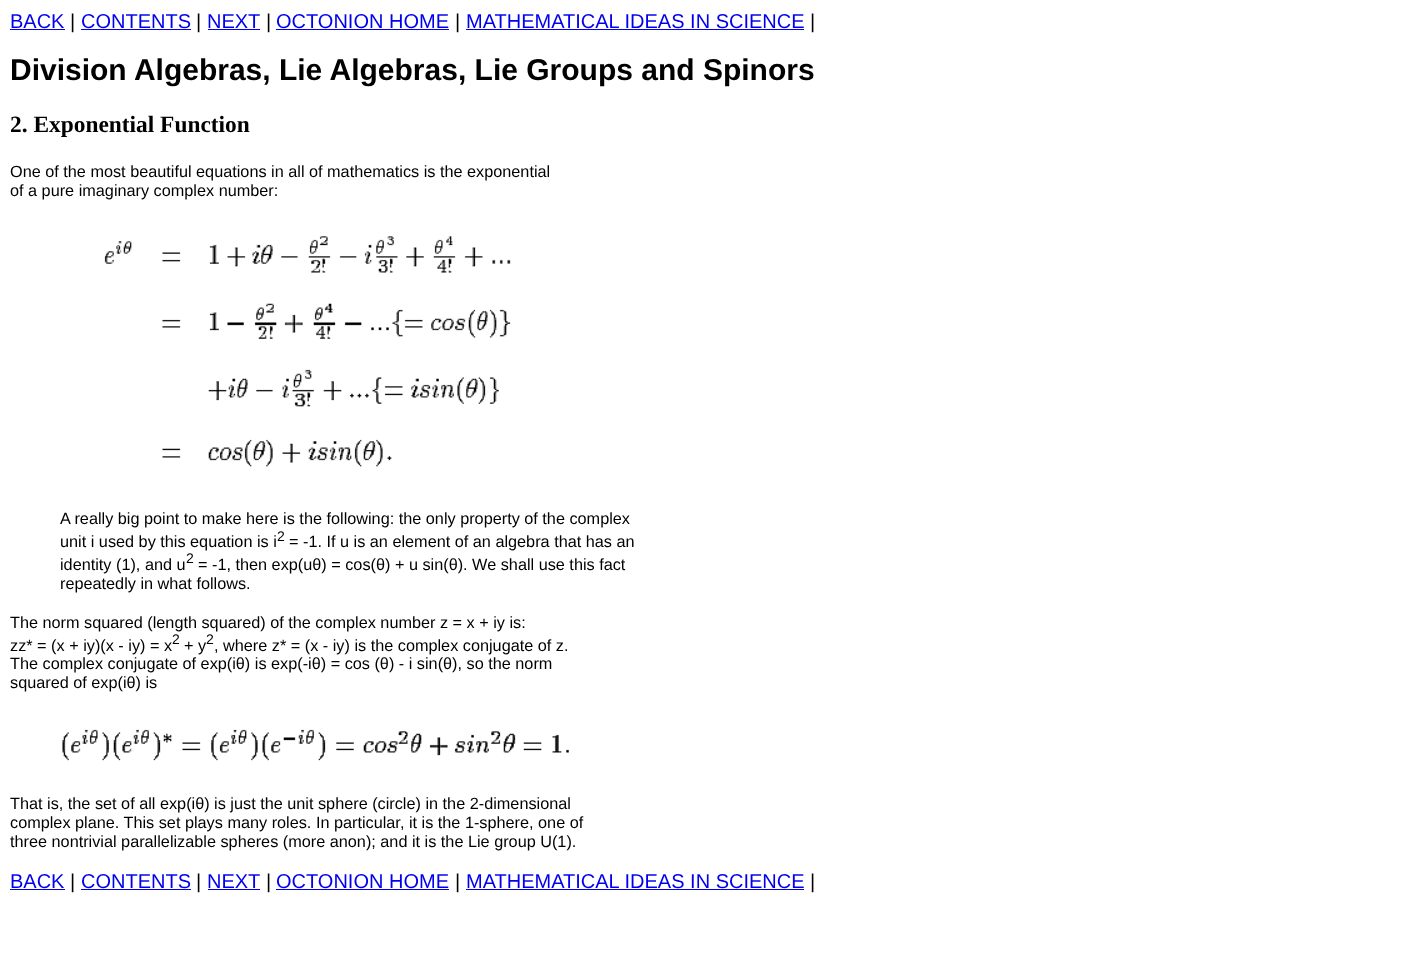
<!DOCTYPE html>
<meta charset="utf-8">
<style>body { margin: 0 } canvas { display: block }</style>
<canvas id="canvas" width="1410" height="955"></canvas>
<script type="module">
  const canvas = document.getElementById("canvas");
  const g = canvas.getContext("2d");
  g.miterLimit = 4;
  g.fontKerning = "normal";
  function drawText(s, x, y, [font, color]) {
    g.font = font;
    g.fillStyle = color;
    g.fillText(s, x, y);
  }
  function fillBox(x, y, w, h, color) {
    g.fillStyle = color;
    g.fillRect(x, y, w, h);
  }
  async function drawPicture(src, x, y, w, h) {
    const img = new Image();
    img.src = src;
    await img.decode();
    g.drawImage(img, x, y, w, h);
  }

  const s1 = ["20px Liberation Sans", "#0000EE"];
  const s2 = ["20px Liberation Sans", "#000000"];
  const s3 = ["bold 30px Liberation Sans", "#000000"];
  const s4 = ["bold 23.4px Liberation Serif", "#000000"];
  const s5 = ["16.25px Liberation Sans", "#000000"];
  const s6 = ["14px Liberation Sans", "#000000"];

  fillBox(0, 0, 1410, 955, "#FFFFFF");
  drawText("BACK", 10, 28, s1);
  fillBox(10, 29, 55, 1, "#0000EE");
  drawText("|", 70, 28, s2);
  drawText("CONTENTS", 81, 28, s1);
  fillBox(81, 29, 110, 1, "#0000EE");
  drawText("|", 196, 28, s2);
  drawText("NEXT", 207, 28, s1);
  fillBox(208, 29, 52, 1, "#0000EE");
  drawText("|", 266, 28, s2);
  drawText("OCTONION HOME", 276, 28, s1);
  fillBox(276, 29, 173, 1, "#0000EE");
  drawText("|", 455, 28, s2);
  drawText("MATHEMATICAL IDEAS IN SCIENCE", 466, 28, s1);
  fillBox(466, 29, 338, 1, "#0000EE");
  drawText("|", 810, 28, s2);
  drawText("Division Algebras, Lie Algebras, Lie Groups and Spinors", 10, 80, s3);
  drawText("2. Exponential Function", 10, 132, s4);
  drawText("One of the most beautiful equations in all of mathematics is the exponential", 10, 177, s5);
  drawText("of a pure imaginary complex number:", 10, 196, s5);
  await drawPicture("pic1.png", 104, 236, 407, 231);
  drawText("A really big point to make here is the following: the only property of the complex", 60, 524, s5);
  drawText("unit i used by this equation is i", 60, 547, s5);
  drawText("2", 277, 541, s6);
  drawText("= -1. If u is an element of an algebra that has an", 289, 547, s5);
  drawText("identity (1), and u", 60, 570, s5);
  drawText("2", 186, 563, s6);
  drawText("= -1, then exp(uθ) = cos(θ) + u sin(θ). We shall use this fact", 198, 570, s5);
  drawText("repeatedly in what follows.", 60, 589, s5);
  drawText("The norm squared (length squared) of the complex number z = x + iy is:", 10, 628, s5);
  drawText("zz* = (x + iy)(x - iy) = x", 10, 651, s5);
  drawText("2", 172, 644, s6);
  drawText("+ y", 184, 651, s5);
  drawText("2", 206, 644, s6);
  drawText(", where z* = (x - iy) is the complex conjugate of z.", 214, 651, s5);
  drawText("The complex conjugate of exp(iθ) is exp(-iθ) = cos (θ) - i sin(θ), so the norm", 10, 669, s5);
  drawText("squared of exp(iθ) is", 10, 688, s5);
  await drawPicture("pic2.png", 62, 729, 507, 32);
  drawText("That is, the set of all exp(iθ) is just the unit sphere (circle) in the 2-dimensional", 10, 809, s5);
  drawText("complex plane. This set plays many roles. In particular, it is the 1-sphere, one of", 10, 828, s5);
  drawText("three nontrivial parallelizable spheres (more anon); and it is the Lie group U(1).", 10, 847, s5);
  drawText("BACK", 10, 888, s1);
  fillBox(10, 889, 55, 1, "#0000EE");
  drawText("|", 70, 888, s2);
  drawText("CONTENTS", 81, 888, s1);
  fillBox(81, 889, 110, 1, "#0000EE");
  drawText("|", 196, 888, s2);
  drawText("NEXT", 207, 888, s1);
  fillBox(208, 889, 52, 1, "#0000EE");
  drawText("|", 266, 888, s2);
  drawText("OCTONION HOME", 276, 888, s1);
  fillBox(276, 889, 173, 1, "#0000EE");
  drawText("|", 455, 888, s2);
  drawText("MATHEMATICAL IDEAS IN SCIENCE", 466, 888, s1);
  fillBox(466, 889, 338, 1, "#0000EE");
  drawText("|", 810, 888, s2);
</script>
